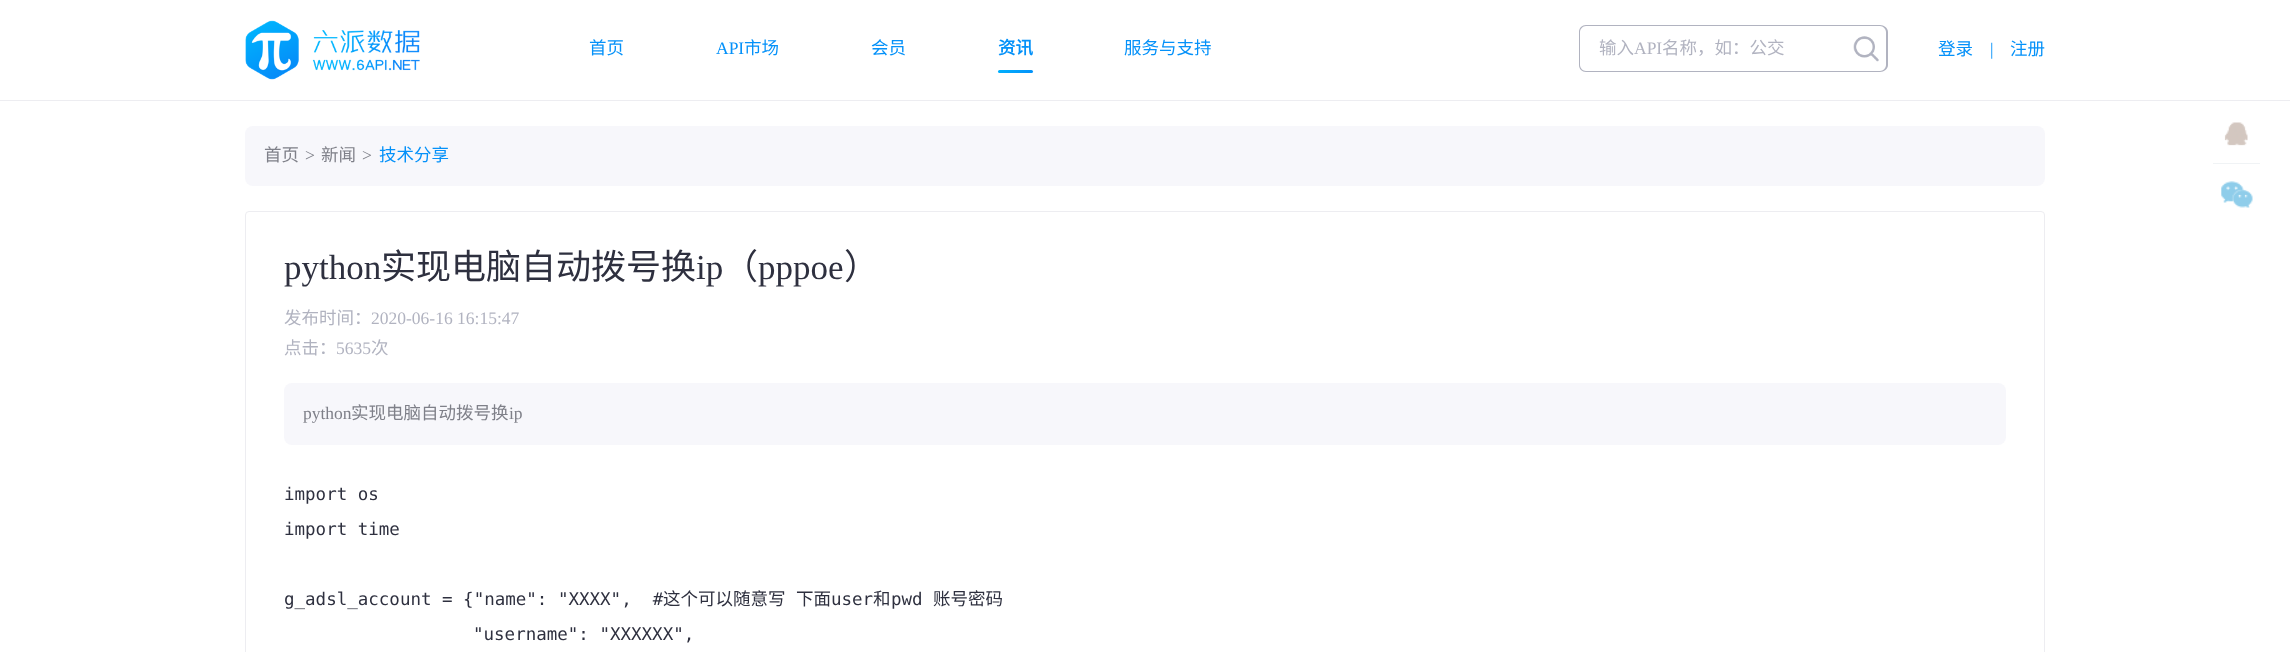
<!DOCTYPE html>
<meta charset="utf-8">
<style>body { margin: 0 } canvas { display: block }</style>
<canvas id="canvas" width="2290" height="652"></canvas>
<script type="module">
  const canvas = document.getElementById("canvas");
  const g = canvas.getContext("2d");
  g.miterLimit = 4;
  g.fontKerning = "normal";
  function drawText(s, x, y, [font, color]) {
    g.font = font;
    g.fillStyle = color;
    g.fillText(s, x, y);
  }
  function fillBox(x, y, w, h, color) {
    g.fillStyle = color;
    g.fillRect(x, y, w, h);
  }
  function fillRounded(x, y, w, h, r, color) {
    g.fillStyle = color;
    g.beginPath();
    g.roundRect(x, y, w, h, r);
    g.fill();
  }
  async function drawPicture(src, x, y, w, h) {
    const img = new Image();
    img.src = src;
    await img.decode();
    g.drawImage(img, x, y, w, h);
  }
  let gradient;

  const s1 = ["17.5px Noto Sans CJK SC", "#0491F9"];
  const s2 = ["17.5px Liberation Serif", "#0491F9"];
  const s3 = ["bold 17.5px Noto Sans CJK SC", "#0491F9"];
  const s4 = ["17.5px Noto Sans CJK SC", "#B1B3C0"];
  const s5 = ["17.5px Liberation Serif", "#B1B3C0"];
  const s6 = ["17.5px Noto Sans CJK SC", "#7F8089"];
  const s7 = ["17.5px Liberation Serif", "#7F8089"];
  const s8 = ["35px Liberation Serif", "#2E303F"];
  const s9 = ["35px Noto Sans CJK SC", "#2E303F"];
  const s10 = ["17.5px DejaVu Sans Mono", "#2E303F"];
  const s11 = ["17.5px Noto Sans CJK SC", "#2E303F"];

  fillBox(0, 0, 2290, 652, "#FFFFFF");
  await drawPicture("pic1.png", 245, 20, 175, 60);
  drawText("首页", 589, 54, s1);
  drawText("API", 716, 54, s2);
  drawText("市场", 744, 54, s1);
  drawText("会员", 871, 54, s1);
  drawText("资讯", 998, 54, s3);
  drawText("服务与支持", 1124, 54, s1);
  gradient = g.createLinearGradient(1006, 62, 1024, 81);
  gradient.addColorStop(0, "#00B1FD");
  gradient.addColorStop(1, "#0491F9");
  g.fillStyle = gradient;
  g.beginPath();
  g.roundRect(998, 70, 35, 3, 1.5);
  g.fill();
  g.fillStyle = "#B1B3C0";
  g.beginPath();
  g.moveTo(1586, 25);
  g.lineTo(1845, 25);
  g.lineTo(1845, 72);
  g.lineTo(1586, 72);
  g.bezierCurveTo(1582, 72, 1579, 69, 1579, 65);
  g.lineTo(1579, 32);
  g.bezierCurveTo(1579, 28, 1582, 25, 1586, 25);
  g.closePath();
  g.moveTo(1586, 26);
  g.lineTo(1845, 26);
  g.lineTo(1845, 71);
  g.lineTo(1586, 71);
  g.bezierCurveTo(1583, 71, 1580, 68, 1580, 65);
  g.lineTo(1580, 32);
  g.bezierCurveTo(1580, 29, 1583, 26, 1586, 26);
  g.closePath();
  g.fill("evenodd");
  drawText("输入", 1599, 54, s4);
  drawText("API", 1634, 54, s5);
  drawText("名称，如：公交", 1662, 54, s4);
  await drawPicture("pic2.png", 1853, 36, 26, 26);
  g.beginPath();
  g.moveTo(1845, 25);
  g.lineTo(1880, 25);
  g.bezierCurveTo(1884, 25, 1888, 28, 1888, 32);
  g.lineTo(1888, 65);
  g.bezierCurveTo(1888, 69, 1884, 72, 1880, 72);
  g.lineTo(1845, 72);
  g.closePath();
  g.moveTo(1845, 26);
  g.lineTo(1880, 26);
  g.bezierCurveTo(1883, 26, 1886, 29, 1886, 32);
  g.lineTo(1886, 65);
  g.bezierCurveTo(1886, 68, 1883, 71, 1880, 71);
  g.lineTo(1845, 71);
  g.closePath();
  g.fill("evenodd");
  drawText("登录", 1938, 55, s1);
  drawText("|", 1990, 55, s2);
  drawText("注册", 2010, 55, s1);
  fillBox(0, 100, 2290, 1, "#EDEDF1");
  fillRounded(245, 126, 1800, 60, 8, "#F7F7FB");
  drawText("首页", 264, 161, s6);
  drawText(">", 305, 161, s7);
  drawText("新闻", 321, 161, s6);
  drawText(">", 362, 161, s7);
  drawText("技术分享", 379, 161, s1);
  await drawPicture("pic3.png", 2224, 122, 24, 24);
  fillBox(2213, 163, 47, 1, "#F0F3F5");
  await drawPicture("pic4.png", 2221, 181, 32, 27);
  g.beginPath();
  g.roundRect(245.5, 211.5, 1799, 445, 3.5);
  g.strokeStyle = "#EDEDF1";
  g.stroke();
  drawText("python", 284, 279, s8);
  drawText("实现电脑自动拨号换", 381, 279, s9);
  drawText("ip", 696, 279, s8);
  drawText("（", 723, 279, s9);
  drawText("pppoe", 758, 279, s8);
  drawText("）", 844, 279, s9);
  drawText("发布时间：", 284, 324, s4);
  drawText("2020-06-16 16:15:47", 371, 324, s5);
  drawText("点击：", 284, 354, s4);
  drawText("5635", 336, 354, s5);
  drawText("次", 371, 354, s4);
  fillRounded(284, 383, 1722, 62, 8, "#F7F7FB");
  drawText("python", 303, 419, s7);
  drawText("实现电脑自动拨号换", 351, 419, s6);
  drawText("ip", 509, 419, s7);
  drawText("import os", 284, 500, s10);
  drawText("import time", 284, 535, s10);
  drawText("g_adsl_account = {\"name\": \"XXXX\",  #", 284, 605, s10);
  drawText("这个可以随意写", 663, 605, s11);
  drawText("下面", 796, 605, s11);
  drawText("user", 831, 605, s10);
  drawText("和", 873, 605, s11);
  drawText("pwd", 891, 605, s10);
  drawText("账号密码", 933, 605, s11);
  drawText("\"username\": \"XXXXXX\",", 473, 640, s10);
</script>
